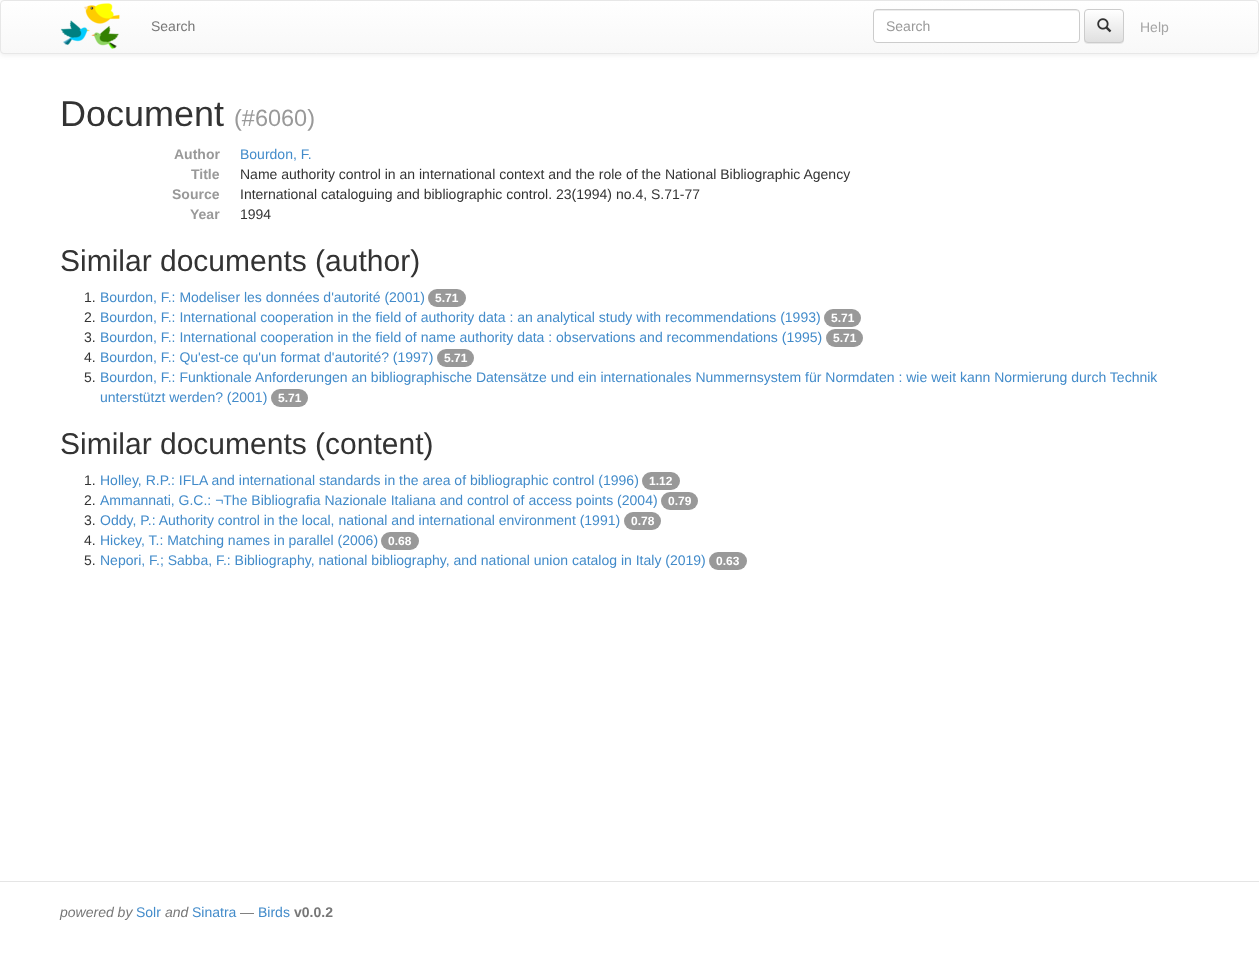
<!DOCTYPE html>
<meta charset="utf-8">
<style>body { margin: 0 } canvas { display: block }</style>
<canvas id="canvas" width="1259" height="961"></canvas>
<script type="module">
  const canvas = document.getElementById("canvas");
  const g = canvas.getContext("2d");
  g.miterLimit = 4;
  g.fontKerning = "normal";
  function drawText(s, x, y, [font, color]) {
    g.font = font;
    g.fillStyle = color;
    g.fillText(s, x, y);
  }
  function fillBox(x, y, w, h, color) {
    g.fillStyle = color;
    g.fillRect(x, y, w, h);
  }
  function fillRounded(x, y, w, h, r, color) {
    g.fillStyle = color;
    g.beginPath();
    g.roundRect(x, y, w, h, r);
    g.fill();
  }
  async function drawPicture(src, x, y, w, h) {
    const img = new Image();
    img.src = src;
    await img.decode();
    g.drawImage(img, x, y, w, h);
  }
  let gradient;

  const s1 = ["14px Liberation Sans", "#777777"];
  const s2 = ["14px Liberation Sans", "#999999"];
  const s3 = ["14px Liberation Sans", "#A5A5A5"];
  const s4 = ["36px Liberation Sans", "#333333"];
  const s5 = ["23.5px Liberation Sans", "#999999"];
  const s6 = ["bold 14px Liberation Sans", "#999999"];
  const s7 = ["14px Liberation Sans", "#428BCA"];
  const s8 = ["14px Liberation Sans", "#333333"];
  const s9 = ["30px Liberation Sans", "#333333"];
  const s10 = ["bold 12px Liberation Sans", "#FFFFFF"];
  const s11 = ["italic 14px Liberation Sans", "#777777"];
  const s12 = ["bold 14px Liberation Sans", "#777777"];

  fillBox(0, 0, 1259, 961, "#FFFFFF");
  g.fillStyle = "rgba(0, 0, 0, 0.07)";
  g.filter = "blur(2.5px)";
  g.beginPath();
  g.roundRect(0, 1, 1259, 54, 4);
  g.fill();
  g.filter = "none";
  g.save();
  g.beginPath();
  g.roundRect(0, 0, 1259, 54, 4);
  g.clip();
  gradient = g.createLinearGradient(630, 1, 630, 53);
  gradient.addColorStop(0, "#FFFFFF");
  gradient.addColorStop(1, "#F8F8F8");
  g.fillStyle = gradient;
  g.fillRect(0, 1, 1259, 52);
  g.restore();
  g.beginPath();
  g.roundRect(0.5, 0.5, 1258, 53, 3.5);
  g.strokeStyle = "#E7E7E7";
  g.stroke();
  await drawPicture("pic1.png", 60, 3, 60, 46);
  drawText("Search", 151, 31, s1);
  fillRounded(873, 9, 207, 34, 4, "#FFFFFF");
  g.fillStyle = "#ECECEC";
  g.beginPath();
  g.moveTo(877, 11);
  g.lineTo(1076, 11);
  g.bezierCurveTo(1078, 11, 1079, 12, 1079, 14);
  g.bezierCurveTo(1079, 12, 1078, 10, 1076, 10);
  g.lineTo(877, 10);
  g.bezierCurveTo(875, 10, 874, 12, 874, 14);
  g.bezierCurveTo(874, 12, 875, 11, 877, 11);
  g.closePath();
  g.fill();
  g.beginPath();
  g.roundRect(873.5, 9.5, 206, 33, 3.5);
  g.strokeStyle = "#CCCCCC";
  g.stroke();
  drawText("Search", 886, 31, s2);
  g.fillStyle = "rgba(0, 0, 0, 0.07)";
  g.filter = "blur(0.5px)";
  g.beginPath();
  g.roundRect(1084, 10, 40, 34, 4);
  g.fill();
  g.filter = "none";
  g.save();
  g.beginPath();
  g.roundRect(1084, 9, 40, 34, 4);
  g.clip();
  gradient = g.createLinearGradient(1104, 10, 1104, 42);
  gradient.addColorStop(0, "#FFFFFF");
  gradient.addColorStop(1, "#E0E0E0");
  g.fillStyle = gradient;
  g.fillRect(1084, 10, 40, 32);
  g.restore();
  g.beginPath();
  g.roundRect(1084.5, 9.5, 39, 33, 3.5);
  g.stroke();
  await drawPicture("pic2.png", 1097, 18, 15, 15);
  drawText("Help", 1140, 32, s3);
  drawText("Document", 60, 126, s4);
  drawText("(#6060)", 234, 126, s5);
  drawText("Author", 174, 159, s6);
  drawText("Bourdon, F.", 240, 159, s7);
  drawText("Title", 191, 179, s6);
  drawText("Name authority control in an international context and the role of the National Bibliographic Agency", 240, 179, s8);
  drawText("Source", 172, 199, s6);
  drawText("International cataloguing and bibliographic control. 23(1994) no.4, S.71-77", 240, 199, s8);
  drawText("Year", 190, 219, s6);
  drawText("1994", 240, 219, s8);
  drawText("Similar documents (author)", 60, 271, s9);
  drawText("1.", 84, 302, s8);
  drawText("Bourdon, F.: Modeliser les données d'autorité (2001)", 100, 302, s7);
  fillRounded(428, 289, 38, 18, 9, "#999999");
  drawText("5.71", 435, 302, s10);
  drawText("2.", 84, 322, s8);
  drawText("Bourdon, F.: International cooperation in the field of authority data : an analytical study with recommendations (1993)", 100, 322, s7);
  fillRounded(824, 309, 37, 18, 9, "#999999");
  drawText("5.71", 831, 322, s10);
  drawText("3.", 84, 342, s8);
  drawText("Bourdon, F.: International cooperation in the field of name authority data : observations and recommendations (1995)", 100, 342, s7);
  fillRounded(826, 329, 37, 18, 9, "#999999");
  drawText("5.71", 833, 342, s10);
  drawText("4.", 84, 362, s8);
  drawText("Bourdon, F.: Qu'est-ce qu'un format d'autorité? (1997)", 100, 362, s7);
  fillRounded(437, 349, 37, 18, 9, "#999999");
  drawText("5.71", 444, 362, s10);
  drawText("5.", 84, 382, s8);
  drawText("Bourdon, F.: Funktionale Anforderungen an bibliographische Datensätze und ein internationales Nummernsystem für Normdaten : wie weit kann Normierung durch Technik", 100, 382, s7);
  drawText("unterstützt werden? (2001)", 100, 402, s7);
  fillRounded(271, 389, 37, 18, 9, "#999999");
  drawText("5.71", 278, 402, s10);
  drawText("Similar documents (content)", 60, 454, s9);
  drawText("1.", 84, 485, s8);
  drawText("Holley, R.P.: IFLA and international standards in the area of bibliographic control (1996)", 100, 485, s7);
  fillRounded(642, 472, 38, 18, 9, "#999999");
  drawText("1.12", 649, 485, s10);
  drawText("2.", 84, 505, s8);
  drawText("Ammannati, G.C.: ¬The Bibliografia Nazionale Italiana and control of access points (2004)", 100, 505, s7);
  fillRounded(661, 492, 37, 18, 9, "#999999");
  drawText("0.79", 668, 505, s10);
  drawText("3.", 84, 525, s8);
  drawText("Oddy, P.: Authority control in the local, national and international environment (1991)", 100, 525, s7);
  fillRounded(624, 512, 37, 18, 9, "#999999");
  drawText("0.78", 631, 525, s10);
  drawText("4.", 84, 545, s8);
  drawText("Hickey, T.: Matching names in parallel (2006)", 100, 545, s7);
  fillRounded(381, 532, 38, 18, 9, "#999999");
  drawText("0.68", 388, 545, s10);
  drawText("5.", 84, 565, s8);
  drawText("Nepori, F.; Sabba, F.: Bibliography, national bibliography, and national union catalog in Italy (2019)", 100, 565, s7);
  fillRounded(709, 552, 38, 18, 9, "#999999");
  drawText("0.63", 716, 565, s10);
  fillBox(0, 881, 1259, 1, "#E5E5E5");
  drawText("powered by", 60, 917, s11);
  drawText("Solr", 136, 917, s7);
  drawText("and", 165, 917, s11);
  drawText("Sinatra", 192, 917, s7);
  drawText("—", 240, 917, s1);
  drawText("Birds", 258, 917, s7);
  drawText("v0.0.2", 294, 917, s12);
</script>
